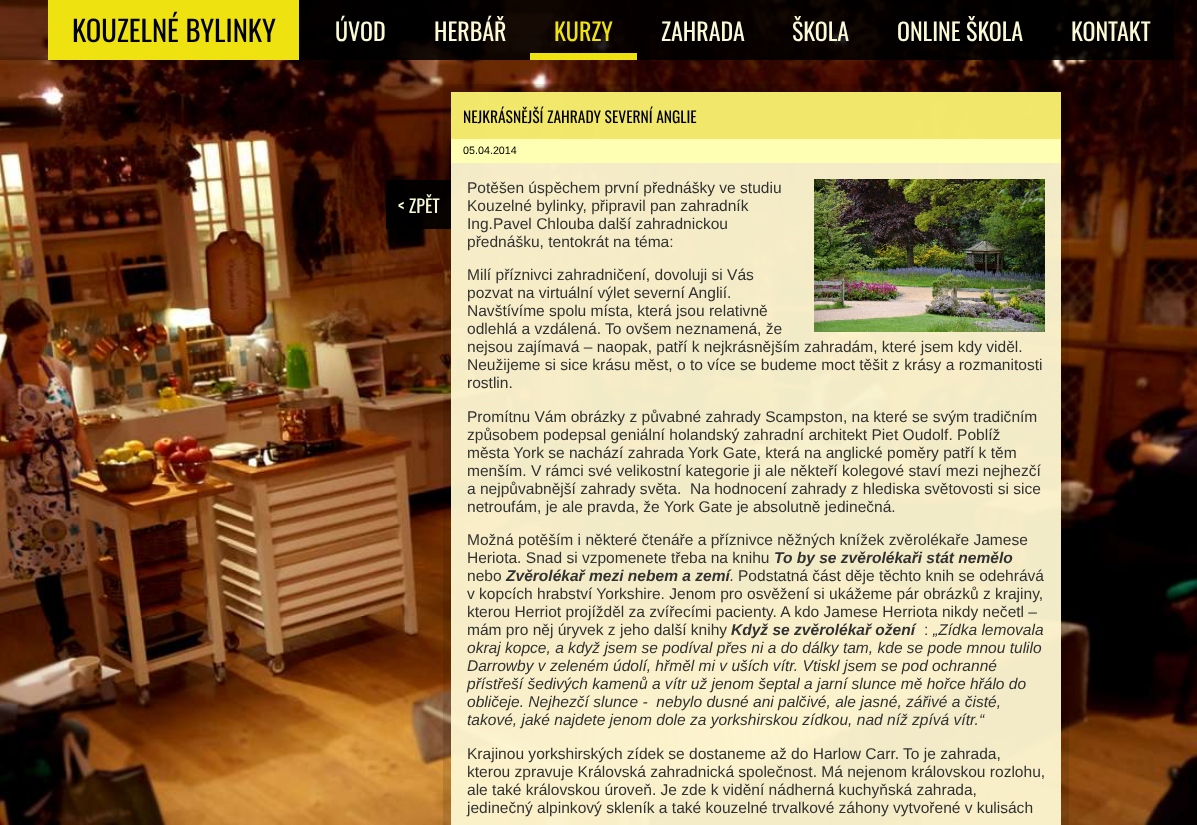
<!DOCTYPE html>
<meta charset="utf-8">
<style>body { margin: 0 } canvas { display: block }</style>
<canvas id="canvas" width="1197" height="825"></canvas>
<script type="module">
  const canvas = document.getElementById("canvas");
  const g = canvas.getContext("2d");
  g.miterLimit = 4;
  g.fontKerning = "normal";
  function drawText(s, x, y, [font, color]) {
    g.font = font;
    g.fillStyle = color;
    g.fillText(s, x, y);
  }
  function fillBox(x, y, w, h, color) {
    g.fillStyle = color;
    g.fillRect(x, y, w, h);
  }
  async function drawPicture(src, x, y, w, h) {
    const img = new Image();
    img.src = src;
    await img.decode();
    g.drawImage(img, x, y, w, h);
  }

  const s1 = ["28.75px Oswald", "#000000"];
  const s2 = ["24px Oswald", "#FAFAD7"];
  const s3 = ["24px Oswald", "#EEE310"];
  const s4 = ["18px Oswald", "#FAFAD7"];
  const s5 = ["15.55px Oswald", "#000000"];
  const s6 = ["10.75px Liberation Sans", "#000000"];
  const s7 = ["15.55px Liberation Sans", "#323232"];
  const s8 = ["italic bold 15.55px Liberation Sans", "#323232"];
  const s9 = ["italic 15.55px Liberation Sans", "#323232"];

  fillBox(0, 0, 1197, 825, "#FFFFFF");
  await drawPicture("pic1.png", 0, 0, 1197, 825);
  fillBox(0, 0, 1197, 60, "rgba(0, 0, 0, 0.3)");
  fillBox(299, 0, 875, 60, "rgba(0, 0, 0, 0.8)");
  fillBox(48, 0, 251, 60, "#EEE310");
  drawText("KOUZELNÉ BYLINKY", 72, 42, s1);
  drawText("ÚVOD", 335, 41, s2);
  drawText("HERBÁŘ", 434, 41, s2);
  fillBox(530, 53, 107, 7, "#EEE310");
  drawText("KURZY", 554, 41, s3);
  drawText("ZAHRADA", 661, 41, s2);
  drawText("ŠKOLA", 792, 41, s2);
  drawText("ONLINE ŠKOLA", 897, 41, s2);
  drawText("KONTAKT", 1071, 41, s2);
  fillBox(443, 84, 626, 741, "rgba(0, 0, 0, 0.1)");
  fillBox(386, 180, 65, 49, "rgba(0, 0, 0, 0.9)");
  drawText("< ZPĚT", 398, 213, s4);
  fillBox(451, 92, 610, 733, "rgba(255, 248, 210, 0.95)");
  fillBox(451, 92, 610, 47, "rgba(238, 227, 16, 0.5)");
  drawText("NEJKRÁSNĚJŠÍ ZAHRADY SEVERNÍ ANGLIE", 463, 123, s5);
  fillBox(451, 139, 610, 24, "#FFFFB4");
  drawText("05.04.2014", 463, 154, s6);
  drawText("Potěšen úspěchem první přednášky ve studiu", 467, 193, s7);
  await drawPicture("pic2.png", 814, 179, 231, 153);
  drawText("Kouzelné bylinky, připravil pan zahradník", 467, 211, s7);
  drawText("Ing.Pavel Chlouba další zahradnickou", 467, 229, s7);
  drawText("přednášku, tentokrát na téma:", 467, 247, s7);
  drawText("Milí příznivci zahradničení, dovoluji si Vás", 467, 280, s7);
  drawText("pozvat na virtuální výlet severní Anglií.", 467, 298, s7);
  drawText("Navštívíme spolu místa, která jsou relativně", 467, 316, s7);
  drawText("odlehlá a vzdálená. To ovšem neznamená, že", 467, 334, s7);
  drawText("nejsou zajímavá – naopak, patří k nejkrásnějším zahradám, které jsem kdy viděl.", 467, 352, s7);
  drawText("Neužijeme si sice krásu měst, o to více se budeme moct těšit z krásy a rozmanitosti", 467, 370, s7);
  drawText("rostlin.", 467, 388, s7);
  drawText("Promítnu Vám obrázky z půvabné zahrady Scampston, na které se svým tradičním", 467, 422, s7);
  drawText("způsobem podepsal geniální holandský zahradní architekt Piet Oudolf. Poblíž", 467, 440, s7);
  drawText("města York se nachází zahrada York Gate, která na anglické poměry patří k těm", 467, 458, s7);
  drawText("menším. V rámci své velikostní kategorie ji ale někteří kolegové staví mezi nejhezčí", 467, 476, s7);
  drawText("a nejpůvabnější zahrady světa.  Na hodnocení zahrady z hlediska světovosti si sice", 467, 494, s7);
  drawText("netroufám, je ale pravda, že York Gate je absolutně jedinečná.", 467, 512, s7);
  drawText("Možná potěším i některé čtenáře a příznivce něžných knížek zvěrolékaře Jamese", 467, 545, s7);
  drawText("Heriota. Snad si vzpomenete třeba na knihu", 467, 563, s7);
  drawText("To by se zvěrolékaři stát nemělo", 774, 563, s8);
  drawText("nebo", 467, 581, s7);
  drawText("Zvěrolékař mezi nebem a zemí", 506, 581, s8);
  drawText("Podstatná část děje těchto knih se odehrává", 738, 581, s7);
  drawText(".", 730, 581, s9);
  drawText("v kopcích hrabství Yorkshire. Jenom pro osvěžení si ukážeme pár obrázků z krajiny,", 467, 599, s7);
  drawText("kterou Herriot projížděl za zvířecími pacienty. A kdo Jamese Herriota nikdy nečetl –", 467, 617, s7);
  drawText("mám pro něj úryvek z jeho další knihy", 467, 635, s7);
  drawText("Když se zvěrolékař ožení", 731, 635, s8);
  drawText(":", 924, 635, s7);
  drawText("„Zídka lemovala", 933, 635, s9);
  drawText("okraj kopce, a když jsem se podíval přes ni a do dálky tam, kde se pode mnou tulilo", 467, 653, s9);
  drawText("Darrowby v zeleném údolí, hřměl mi v uších vítr. Vtiskl jsem se pod ochranné", 467, 671, s9);
  drawText("přístřeší šedivých kamenů a vítr už jenom šeptal a jarní slunce mě hořce hřálo do", 467, 689, s9);
  drawText("obličeje. Nejhezčí slunce -  nebylo dusné ani palčivé, ale jasné, zářivé a čisté,", 467, 707, s9);
  drawText("takové, jaké najdete jenom dole za yorkshirskou zídkou, nad níž zpívá vítr.“", 467, 725, s9);
  drawText("Krajinou yorkshirských zídek se dostaneme až do Harlow Carr. To je zahrada,", 467, 759, s7);
  drawText("kterou zpravuje Královská zahradnická společnost. Má nejenom královskou rozlohu,", 467, 777, s7);
  drawText("ale také královskou úroveň. Je zde k vidění nádherná kuchyňská zahrada,", 467, 795, s7);
  drawText("jedinečný alpinkový skleník a také kouzelné trvalkové záhony vytvořené v kulisách", 467, 813, s7);
</script>
